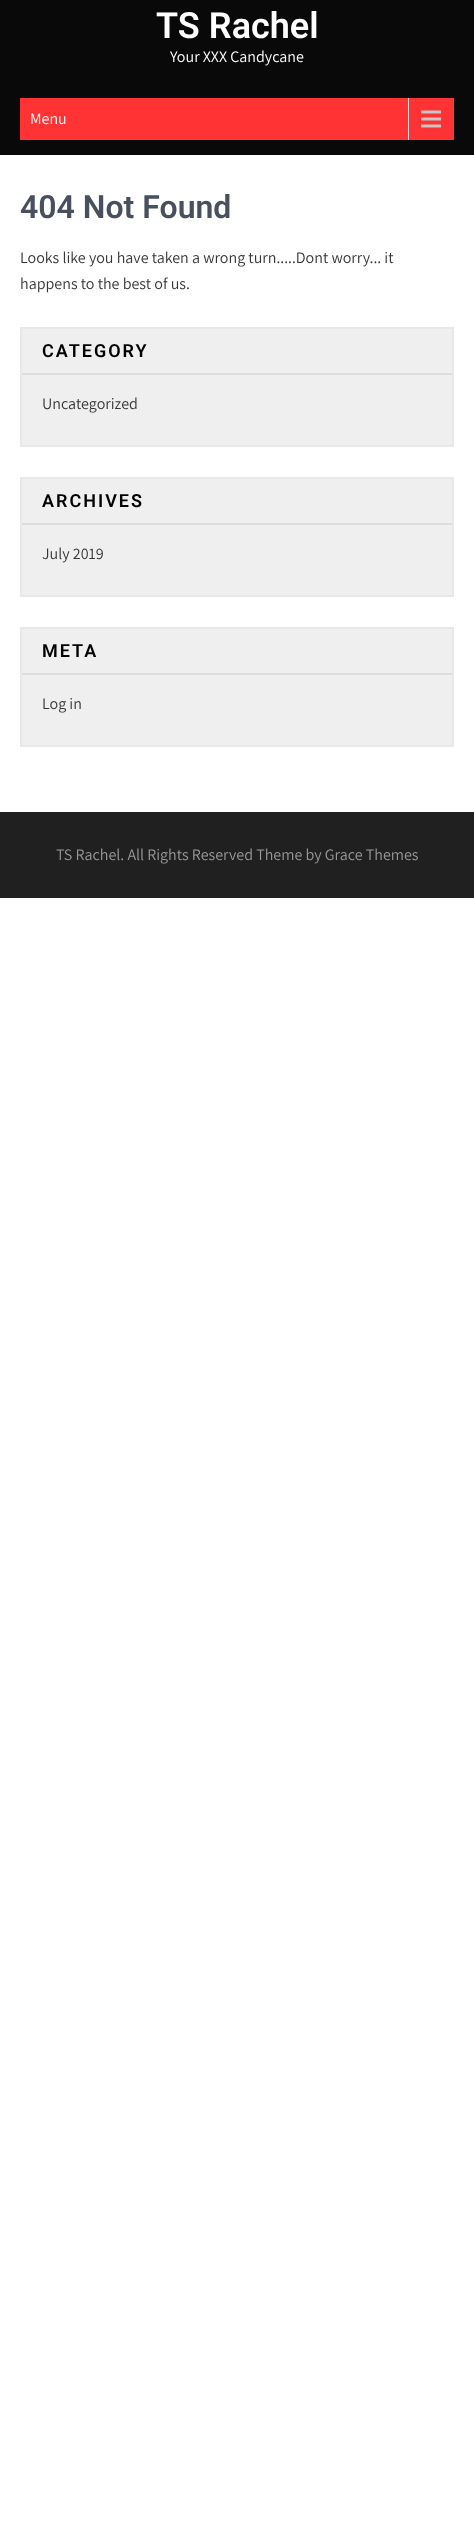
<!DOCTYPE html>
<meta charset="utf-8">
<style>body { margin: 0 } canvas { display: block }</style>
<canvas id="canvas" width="474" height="2536"></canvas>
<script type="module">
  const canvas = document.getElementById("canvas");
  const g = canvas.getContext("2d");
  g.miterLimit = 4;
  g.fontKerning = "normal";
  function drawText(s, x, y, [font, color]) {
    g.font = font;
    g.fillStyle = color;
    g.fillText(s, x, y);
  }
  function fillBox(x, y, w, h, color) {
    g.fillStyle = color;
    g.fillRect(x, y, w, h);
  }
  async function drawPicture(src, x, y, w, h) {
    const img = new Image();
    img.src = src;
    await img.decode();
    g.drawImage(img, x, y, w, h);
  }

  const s1 = ["600 36px Roboto", "#FFFFFF"];
  const s2 = ["16px Assistant", "#FFFFFF"];
  const s3 = ["600 32px Roboto", "#484F5E"];
  const s4 = ["16px Assistant", "#363636"];
  const s5 = ["600 18px Roboto", "#000000"];
  const s6 = ["16px Assistant", "#999999"];

  fillBox(0, 0, 474, 2536, "#FFFFFF");
  fillBox(0, 0, 474, 155, "#090909");
  drawText("TS Rachel", 156, 38, s1);
  drawText("Your XXX Candycane", 170, 62, s2);
  fillBox(20, 98, 434, 42, "#FF3333");
  await drawPicture("pic1.png", 408, 98, 33, 42);
  drawText("Menu", 30, 124, s2);
  drawText("404 Not Found", 20, 218, s3);
  drawText("Looks like you have taken a wrong turn.....Dont worry... it", 20, 263, s4);
  drawText("happens to the best of us.", 20, 289, s4);
  g.fillStyle = "#F0EFEF";
  g.beginPath();
  g.rect(21, 328, 432, 118);
  g.fill();
  g.strokeStyle = "#E8E8E8";
  g.lineWidth = 2;
  g.stroke();
  fillBox(22, 373, 430, 2, "#DDDDDD");
  g.letterSpacing = "2px";
  drawText("CATEGORY", 42, 357, s5);
  g.letterSpacing = "0px";
  drawText("Uncategorized", 42, 409, s4);
  g.fillStyle = "#F0EFEF";
  g.beginPath();
  g.rect(21, 478, 432, 118);
  g.fill();
  g.stroke();
  fillBox(22, 523, 430, 2, "#DDDDDD");
  g.letterSpacing = "2px";
  drawText("ARCHIVES", 42, 507, s5);
  g.letterSpacing = "0px";
  drawText("July 2019", 42, 559, s4);
  g.fillStyle = "#F0EFEF";
  g.beginPath();
  g.rect(21, 628, 432, 118);
  g.fill();
  g.stroke();
  fillBox(22, 673, 430, 2, "#DDDDDD");
  g.letterSpacing = "2px";
  drawText("META", 42, 657, s5);
  g.letterSpacing = "0px";
  drawText("Log in", 42, 709, s4);
  fillBox(0, 812, 474, 86, "#202020");
  drawText("TS Rachel. All Rights Reserved Theme by Grace Themes", 56, 860, s6);
</script>
